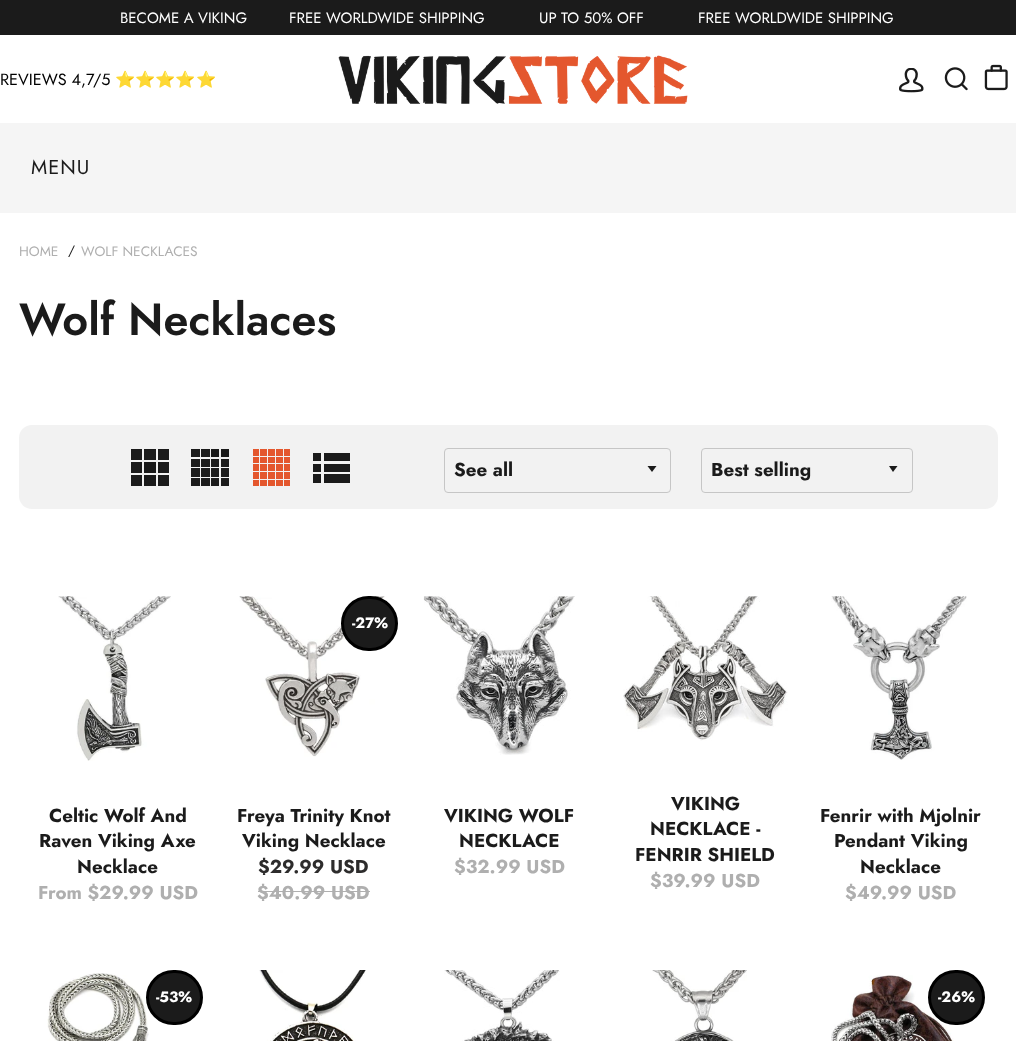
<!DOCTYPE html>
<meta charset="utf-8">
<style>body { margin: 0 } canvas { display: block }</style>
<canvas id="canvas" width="1016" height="1041"></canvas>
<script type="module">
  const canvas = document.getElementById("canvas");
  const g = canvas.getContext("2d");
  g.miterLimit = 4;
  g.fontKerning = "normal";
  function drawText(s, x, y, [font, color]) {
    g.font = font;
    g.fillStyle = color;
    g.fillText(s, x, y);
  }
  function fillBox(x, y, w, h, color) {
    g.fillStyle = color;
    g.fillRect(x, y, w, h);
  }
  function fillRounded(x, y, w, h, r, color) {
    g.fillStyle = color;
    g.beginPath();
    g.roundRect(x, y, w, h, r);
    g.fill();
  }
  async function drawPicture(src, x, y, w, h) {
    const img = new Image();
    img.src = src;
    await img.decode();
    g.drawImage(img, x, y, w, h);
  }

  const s1 = ["15px Jost", "#FFFFFF"];
  const s2 = ["16.25px Jost", "#000000"];
  const s3 = ["16.25px Noto Color Emoji", "#000000"];
  const s4 = ["20px Jost", "#1B1B1B"];
  const s5 = ["13.75px Jost", "#AFAFAF"];
  const s6 = ["13.75px Jost", "#1B1B1B"];
  const s7 = ["600 45px Jost", "#1B1B1B"];
  const s8 = ["bold 18.75px Jost", "#1B1B1B"];
  const s9 = ["bold 18.75px Jost", "#AFAFAF"];
  const s10 = ["bold 15px Jost", "#FFFFFF"];
  const s11 = ["bold 18.75px Jost", "#2D2C2C"];

  fillBox(0, 0, 1016, 1041, "#FFFFFF");
  fillBox(0, 0, 1016, 35, "#1B1B1B");
  drawText("BECOME A VIKING", 120, 23, s1);
  drawText("FREE WORLDWIDE SHIPPING", 289, 23, s1);
  drawText("UP TO 50% OFF", 539, 23, s1);
  drawText("FREE WORLDWIDE SHIPPING", 698, 23, s1);
  drawText("REVIEWS 4,7/5", 0, 85, s2);
  drawText("⭐⭐⭐⭐⭐", 115, 85, s3);
  await drawPicture("pic1.png", 338, 55, 350, 49);
  await drawPicture("pic2.png", 899, 68, 25, 25);
  await drawPicture("pic3.png", 944, 67, 24, 24);
  await drawPicture("pic4.png", 984, 64, 24, 27);
  fillBox(0, 123, 1016, 90, "#F5F5F5");
  g.letterSpacing = "1px";
  drawText("MENU", 31, 174, s4);
  g.letterSpacing = "0px";
  drawText("HOME", 19, 256, s5);
  drawText("/", 68, 255, s6);
  drawText("WOLF NECKLACES", 81, 256, s5);
  drawText("Wolf Necklaces", 19, 335, s7);
  fillRounded(19, 425, 979, 84, 13, "#F2F2F2");
  await drawPicture("pic5.png", 131, 449, 38, 37);
  await drawPicture("pic6.png", 191, 449, 38, 37);
  await drawPicture("pic7.png", 253, 449, 37, 37);
  fillBox(313, 453, 8, 8, "#1B1B1B");
  fillBox(324, 453, 26, 8, "#1B1B1B");
  fillBox(313, 464, 8, 8, "#1B1B1B");
  fillBox(324, 464, 26, 8, "#1B1B1B");
  fillBox(313, 474, 8, 9, "#1B1B1B");
  fillBox(324, 474, 26, 9, "#1B1B1B");
  g.beginPath();
  g.roundRect(444.5, 448.5, 226, 44, 3.5);
  g.strokeStyle = "#C6C6C6";
  g.stroke();
  g.beginPath();
  g.moveTo(647.5, 466);
  g.lineTo(652, 472);
  g.lineTo(656.5, 466);
  g.closePath();
  g.fill();
  drawText("See all", 454, 476, s8);
  g.beginPath();
  g.roundRect(701.5, 448.5, 211, 44, 3.5);
  g.stroke();
  g.beginPath();
  g.moveTo(889, 466);
  g.lineTo(893, 472);
  g.lineTo(897.5, 466);
  g.closePath();
  g.fill();
  drawText("Best selling", 711, 476, s8);
  await drawPicture("pic8.png", 58, 596, 113, 165);
  drawText("Celtic Wolf And", 49, 822, s8);
  drawText("Raven Viking Axe", 39, 847, s8);
  drawText("Necklace", 77, 873, s8);
  drawText("From $29.99 USD", 38, 899, s9);
  await drawPicture("pic9.png", 239, 596, 146, 161);
  g.fillStyle = "#1B1B1B";
  g.beginPath();
  g.roundRect(342.5, 597.5, 54, 52, 26);
  g.fill();
  g.strokeStyle = "#000000";
  g.lineWidth = 3;
  g.stroke();
  drawText("-27%", 352, 628, s10);
  drawText("Freya Trinity Knot", 237, 822, s8);
  drawText("Viking Necklace", 242, 847, s8);
  drawText("$29.99 USD", 258, 873, s11);
  drawText("$40.99 USD", 257, 899, s9);
  fillBox(258, 891, 112, 1, "#AFAFAF");
  await drawPicture("pic10.png", 423, 596, 152, 159);
  drawText("VIKING WOLF", 444, 822, s8);
  drawText("NECKLACE", 459, 847, s8);
  drawText("$32.99 USD", 454, 873, s9);
  await drawPicture("pic11.png", 623, 596, 165, 145);
  drawText("VIKING", 671, 810, s8);
  drawText("NECKLACE -", 650, 835, s8);
  drawText("FENRIR SHIELD", 635, 861, s8);
  drawText("$39.99 USD", 650, 887, s9);
  await drawPicture("pic12.png", 831, 596, 136, 164);
  drawText("Fenrir with Mjolnir", 820, 822, s8);
  drawText("Pendant Viking", 834, 847, s8);
  drawText("Necklace", 860, 873, s8);
  drawText("$49.99 USD", 845, 899, s9);
  await drawPicture("pic13.png", 47, 973, 102, 68);
  g.fillStyle = "#1B1B1B";
  g.beginPath();
  g.roundRect(147.5, 971.5, 54, 52, 26);
  g.fill();
  g.stroke();
  drawText("-53%", 156, 1002, s10);
  await drawPicture("pic14.png", 259, 970, 107, 71);
  await drawPicture("pic15.png", 444, 970, 116, 71);
  await drawPicture("pic16.png", 652, 970, 95, 71);
  await drawPicture("pic17.png", 831, 975, 123, 66);
  g.fillStyle = "#1B1B1B";
  g.beginPath();
  g.roundRect(929.5, 971.5, 54, 52, 26);
  g.fill();
  g.stroke();
  drawText("-26%", 938, 1002, s10);
</script>
